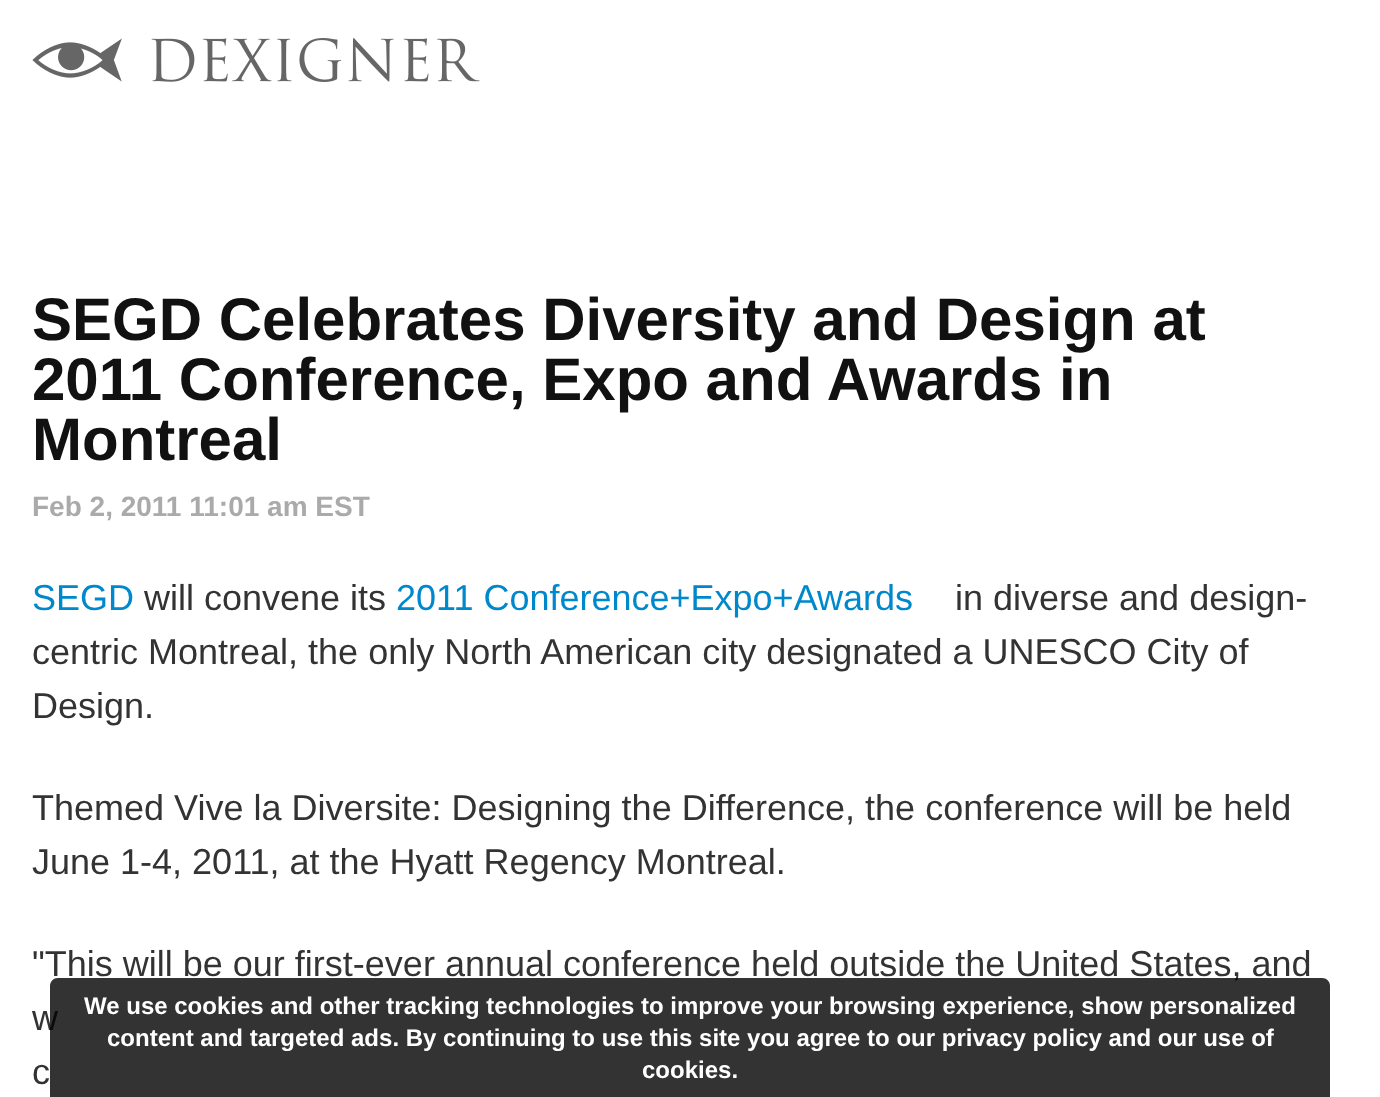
<!DOCTYPE html>
<meta charset="utf-8">
<style>body { margin: 0 } canvas { display: block }</style>
<canvas id="canvas" width="1380" height="1097"></canvas>
<script type="module">
  const canvas = document.getElementById("canvas");
  const g = canvas.getContext("2d");
  g.miterLimit = 4;
  g.fontKerning = "normal";
  function drawText(s, x, y, [font, color]) {
    g.font = font;
    g.fillStyle = color;
    g.fillText(s, x, y);
  }
  function fillBox(x, y, w, h, color) {
    g.fillStyle = color;
    g.fillRect(x, y, w, h);
  }
  async function drawPicture(src, x, y, w, h) {
    const img = new Image();
    img.src = src;
    await img.decode();
    g.drawImage(img, x, y, w, h);
  }

  const s1 = ["bold 60px Liberation Sans", "#111111"];
  const s2 = ["bold 28px Liberation Sans", "#AAAAAA"];
  const s3 = ["36px Liberation Sans", "#0088CC"];
  const s4 = ["36px Liberation Sans", "#333333"];
  const s5 = ["bold 24px Liberation Sans", "#FFFFFF"];

  fillBox(0, 0, 1380, 1097, "#FFFFFF");
  await drawPicture("pic1.png", 32, 38, 448, 44);
  drawText("SEGD Celebrates Diversity and Design at", 32, 340, s1);
  drawText("2011 Conference, Expo and Awards in", 32, 400, s1);
  drawText("Montreal", 32, 460, s1);
  drawText("Feb 2, 2011 11:01 am EST", 32, 516, s2);
  drawText("SEGD", 32, 610, s3);
  drawText("will convene its", 144, 610, s4);
  drawText("2011 Conference+Expo+Awards", 396, 610, s3);
  drawText("in diverse and design-", 955, 610, s4);
  drawText("centric Montreal, the only North American city designated a UNESCO City of", 32, 664, s4);
  drawText("Design.", 32, 718, s4);
  drawText("Themed Vive la Diversite: Designing the Difference, the conference will be held", 32, 820, s4);
  drawText("June 1-4, 2011, at the Hyatt Regency Montreal.", 32, 874, s4);
  drawText("\"This will be our first-ever annual conference held outside the United States, and", 32, 976, s4);
  drawText("w", 32, 1030, s4);
  drawText("c", 32, 1084, s4);
  g.fillStyle = "rgba(0, 0, 0, 0.8)";
  g.beginPath();
  g.moveTo(58, 978);
  g.lineTo(1322, 978);
  g.bezierCurveTo(1326.5, 978, 1330, 981.5, 1330, 986);
  g.lineTo(1330, 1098);
  g.lineTo(50, 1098);
  g.lineTo(50, 986);
  g.bezierCurveTo(50, 981.5, 53.5, 978, 58, 978);
  g.closePath();
  g.fill();
  drawText("We use cookies and other tracking technologies to improve your browsing experience, show personalized", 84, 1014, s5);
  drawText("content and targeted ads. By continuing to use this site you agree to our privacy policy and our use of", 107, 1046, s5);
  drawText("cookies.", 642, 1078, s5);
</script>
